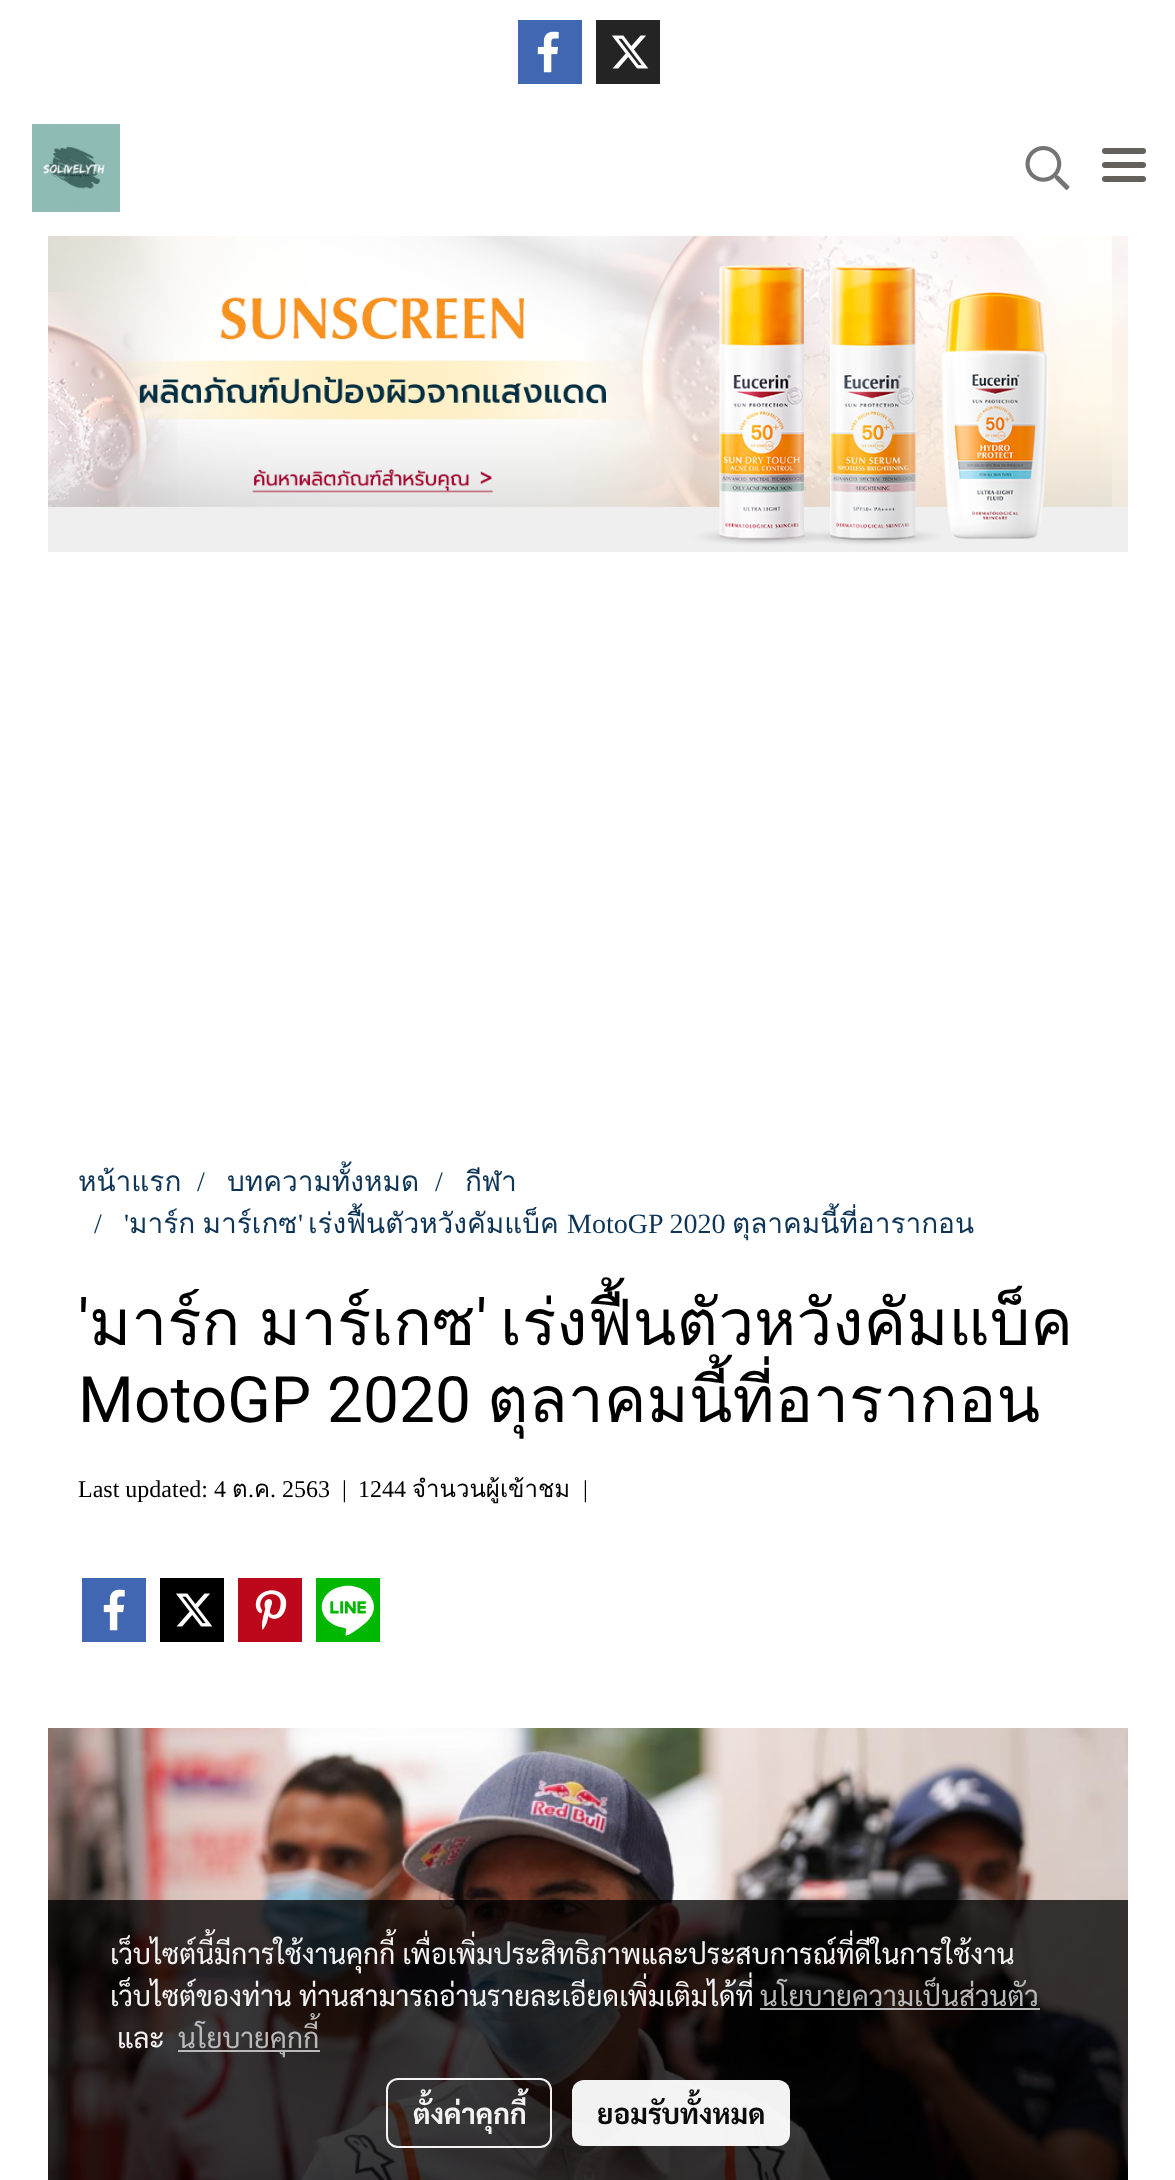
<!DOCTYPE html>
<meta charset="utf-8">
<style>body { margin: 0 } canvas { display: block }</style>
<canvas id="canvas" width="1175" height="2180"></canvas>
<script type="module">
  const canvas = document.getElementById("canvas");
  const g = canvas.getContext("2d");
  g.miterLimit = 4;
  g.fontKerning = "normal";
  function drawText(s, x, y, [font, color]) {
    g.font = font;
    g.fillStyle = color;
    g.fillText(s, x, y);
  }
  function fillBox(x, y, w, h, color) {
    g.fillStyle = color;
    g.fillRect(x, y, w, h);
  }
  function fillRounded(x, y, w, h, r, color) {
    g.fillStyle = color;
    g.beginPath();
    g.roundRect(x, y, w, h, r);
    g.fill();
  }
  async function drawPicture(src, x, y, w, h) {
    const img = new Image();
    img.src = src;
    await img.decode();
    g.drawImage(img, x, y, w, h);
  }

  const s1 = ["28px Loma", "#0E3556"];
  const s2 = ["28px Liberation Serif", "#0E3556"];
  const s3 = ["64px Roboto", "#000000"];
  const s4 = ["64px Loma", "#000000"];
  const s5 = ["24px Liberation Serif", "#000000"];
  const s6 = ["24px Loma", "#000000"];
  const s7 = ["28px Sarabun", "#F4F3F3"];
  const s8 = ["28px Sarabun", "#B9B9B9"];
  const s9 = ["bold 28px Sarabun", "#F4F3F3"];
  const s10 = ["bold 28px Sarabun", "#0C0C0C"];

  fillBox(0, 0, 1175, 2180, "#FFFFFF");
  fillBox(518, 20, 64, 64, "#4267B2");
  await drawPicture("pic1.png", 537, 31, 22, 42);
  fillBox(596, 20, 64, 64, "#242424");
  await drawPicture("pic2.png", 612, 35, 37, 34);
  await drawPicture("pic3.png", 32, 124, 88, 88);
  await drawPicture("pic4.png", 1025, 146, 45, 44);
  fillRounded(1102, 162, 44, 6, 3, "#64615C");
  fillRounded(1102, 148, 44, 6, 3, "#64615C");
  fillRounded(1102, 176, 44, 6, 3, "#64615C");
  await drawPicture("pic5.png", 48, 236, 1080, 316);
  drawText("หน้าแรก", 78, 1191, s1);
  drawText("/", 197, 1191, s2);
  drawText("บทความทั้งหมด", 227, 1191, s1);
  drawText("/", 435, 1191, s2);
  drawText("กีฬา", 465, 1191, s1);
  drawText("/", 94, 1233, s2);
  drawText("'", 124, 1233, s2);
  g.wordSpacing = "-2px";
  drawText("มาร์ก มาร์เกซ", 129, 1233, s1);
  g.wordSpacing = "0px";
  drawText("'", 298, 1233, s2);
  drawText("เร่งฟื้นตัวหวังคัมแบ็ค", 308, 1233, s1);
  drawText("MotoGP 2020", 567, 1233, s2);
  drawText("ตุลาคมนี้ที่อารากอน", 732, 1233, s1);
  drawText("'", 78, 1345, s3);
  g.wordSpacing = "-3px";
  drawText("มาร์ก มาร์เกซ", 89, 1345, s4);
  g.wordSpacing = "0px";
  drawText("'", 476, 1345, s3);
  drawText("เร่งฟื้นตัวหวังคัมแบ็ค", 500, 1345, s4);
  drawText("MotoGP 2020", 78, 1422, s3);
  drawText("ตุลาคมนี้ที่อารากอน", 487, 1422, s4);
  drawText("Last updated: 4", 78, 1497, s5);
  drawText("ต", 232, 1497, s6);
  drawText(".", 248, 1497, s5);
  drawText("ค", 254, 1497, s6);
  drawText(". 2563", 270, 1497, s5);
  drawText("|", 342, 1497, s5);
  drawText("1244", 358, 1497, s5);
  drawText("จำนวนผู้เข้าชม", 412, 1497, s6);
  drawText("|", 583, 1497, s5);
  fillBox(82, 1578, 64, 64, "#4267B2");
  await drawPicture("pic1.png", 103, 1589, 22, 42);
  fillBox(160, 1578, 64, 64, "#000000");
  await drawPicture("pic6.png", 176, 1593, 37, 34);
  fillBox(238, 1578, 64, 64, "#BD081C");
  await drawPicture("pic7.png", 255, 1590, 32, 40);
  fillBox(316, 1578, 64, 64, "#00B800");
  await drawPicture("pic8.png", 321, 1585, 53, 51);
  await drawPicture("pic9.png", 48, 1728, 1080, 452);
  fillBox(48, 1900, 1080, 280, "rgba(0, 0, 0, 0.76)");
  drawText("เว็บไซต์นี้มีการใช้งานคุกกี้ เพื่อเพิ่มประสิทธิภาพและประสบการณ์ที่ดีในการใช้งาน", 110, 1964, s7);
  drawText("เว็บไซต์ของท่าน", 110, 2006, s7);
  drawText("ท่านสามารถอ่านรายละเอียดเพิ่มเติมได้ที่", 299, 2006, s7);
  drawText("นโยบายความเป็นส่วนตัว", 760, 2006, s8);
  fillBox(760, 2008, 280, 2, "rgba(194, 194, 194, 0.95)");
  drawText("และ", 117, 2048, s7);
  fillBox(178, 2050, 142, 2, "rgba(194, 194, 194, 0.95)");
  drawText("นโยบายคุกกี้", 178, 2048, s8);
  g.beginPath();
  g.roundRect(387, 2079, 164, 68, 11);
  g.strokeStyle = "rgba(255, 255, 255, 0.95)";
  g.lineWidth = 2;
  g.stroke();
  drawText("ตั้งค่าคุกกี้", 413, 2124, s9);
  fillRounded(572, 2080, 218, 66, 12, "rgba(255, 255, 255, 0.95)");
  drawText("ยอมรับทั้งหมด", 597, 2124, s10);
</script>
